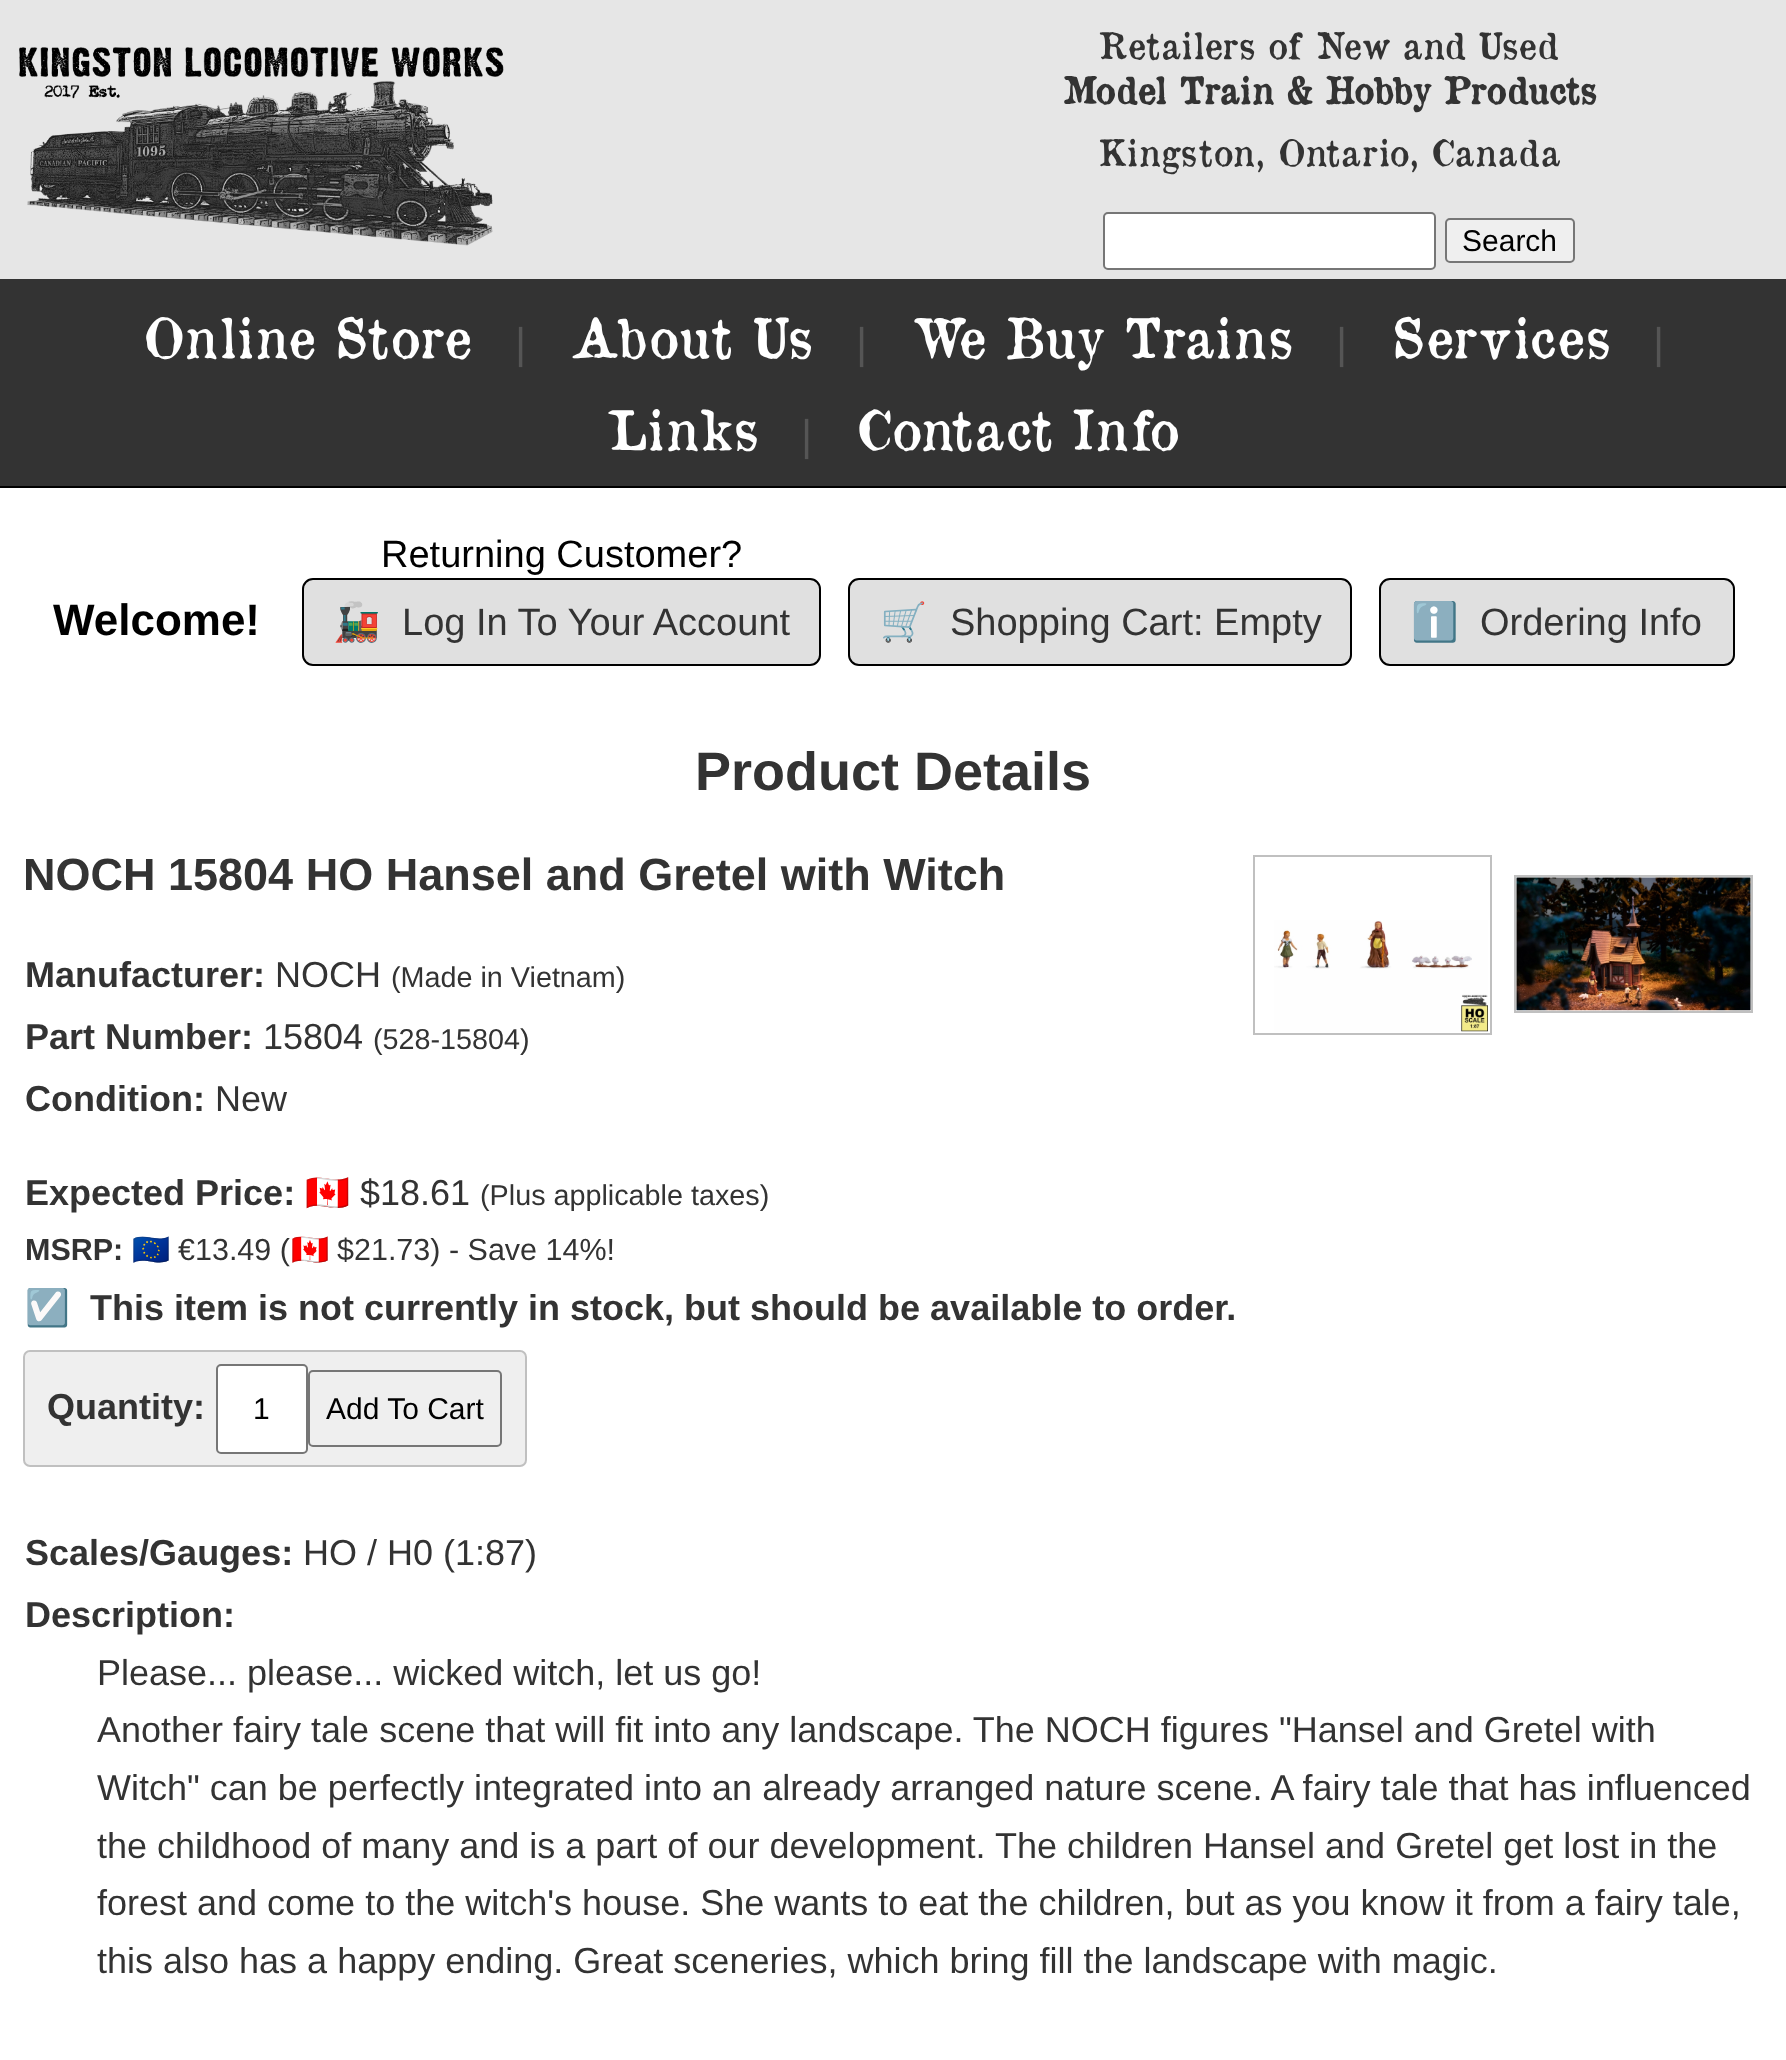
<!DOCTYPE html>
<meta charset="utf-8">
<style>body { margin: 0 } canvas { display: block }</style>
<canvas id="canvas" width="1786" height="2060"></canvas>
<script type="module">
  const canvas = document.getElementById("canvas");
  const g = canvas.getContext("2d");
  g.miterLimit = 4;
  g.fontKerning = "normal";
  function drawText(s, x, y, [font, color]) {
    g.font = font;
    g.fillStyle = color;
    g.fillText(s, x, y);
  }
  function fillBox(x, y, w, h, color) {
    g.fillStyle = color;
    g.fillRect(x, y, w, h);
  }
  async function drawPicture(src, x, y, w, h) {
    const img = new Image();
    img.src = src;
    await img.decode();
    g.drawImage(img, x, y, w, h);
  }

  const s1 = ["500 35.75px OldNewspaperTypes", "#333333"];
  const s2 = ["bold 35.75px OldNewspaperTypes", "#333333"];
  const s3 = ["30px Liberation Sans", "#000000"];
  const s4 = ["500 54px OldNewspaperTypes", "#FFFFFF"];
  const s5 = ["43px Liberation Sans", "#555555"];
  const s6 = ["bold 44px Liberation Sans", "#000000"];
  const s7 = ["38px Liberation Sans", "#000000"];
  const s8 = ["38px Noto Color Emoji", "#333333"];
  const s9 = ["38px Liberation Sans", "#333333"];
  const s10 = ["bold 54px Liberation Sans", "#333333"];
  const s11 = ["bold 45px Liberation Sans", "#333333"];
  const s12 = ["bold 36px Liberation Sans", "#333333"];
  const s13 = ["36px Liberation Sans", "#333333"];
  const s14 = ["28.75px Liberation Sans", "#333333"];
  const s15 = ["36px Noto Color Emoji", "#333333"];
  const s16 = ["bold 30.5px Liberation Sans", "#333333"];
  const s17 = ["30.5px Noto Color Emoji", "#333333"];
  const s18 = ["30.5px Liberation Sans", "#333333"];

  fillBox(0, 0, 1786, 2060, "#FFFFFF");
  fillBox(0, 0, 1786, 279, "#E6E6E6");
  await drawPicture("pic1.png", 19, 47, 485, 199);
  drawText("Retailers of New and Used", 1098, 59, s1);
  drawText("Model Train & Hobby Products", 1062, 104, s2);
  drawText("Kingston, Ontario, Canada", 1098, 166, s1);
  g.fillStyle = "#FFFFFF";
  g.beginPath();
  g.roundRect(1104, 213, 331, 56, 4);
  g.fill();
  g.strokeStyle = "#767676";
  g.lineWidth = 2;
  g.stroke();
  g.fillStyle = "#EFEFEF";
  g.beginPath();
  g.roundRect(1446, 219, 128, 43, 4);
  g.fill();
  g.stroke();
  drawText("Search", 1462, 251, s3);
  fillBox(0, 279, 1786, 207, "#333333");
  fillBox(0, 486, 1786, 2, "#000000");
  drawText("Online Store", 142, 358, s4);
  drawText("|", 515, 358, s5);
  drawText("About Us", 570, 358, s4);
  drawText("|", 856, 358, s5);
  drawText("We Buy Trains", 911, 358, s4);
  drawText("|", 1336, 358, s5);
  drawText("Services", 1391, 358, s4);
  drawText("|", 1653, 358, s5);
  drawText("Links", 608, 450, s4);
  drawText("|", 801, 450, s5);
  drawText("Contact Info", 856, 450, s4);
  drawText("Welcome!", 53, 635, s6);
  drawText("Returning Customer?", 381, 567, s7);
  g.fillStyle = "#E0E0E0";
  g.beginPath();
  g.roundRect(303, 579, 517, 86, 10);
  g.fill();
  g.strokeStyle = "#000000";
  g.stroke();
  drawText("🚂", 333, 635, s8);
  drawText("Log In To Your Account", 402, 635, s9);
  g.fillStyle = "#E0E0E0";
  g.beginPath();
  g.roundRect(849, 579, 502, 86, 10);
  g.fill();
  g.stroke();
  drawText("🛒", 880, 635, s8);
  drawText("Shopping Cart: Empty", 950, 635, s9);
  g.fillStyle = "#E0E0E0";
  g.beginPath();
  g.roundRect(1380, 579, 354, 86, 10);
  g.fill();
  g.stroke();
  drawText("ℹ️", 1411, 635, s8);
  drawText("Ordering Info", 1480, 635, s9);
  drawText("Product Details", 695, 790, s10);
  drawText("NOCH 15804 HO Hansel and Gretel with Witch", 23, 890, s11);
  g.strokeStyle = "#C0C0C0";
  g.strokeRect(1254, 856, 237, 178);
  await drawPicture("pic2.png", 1274, 920, 214, 112);
  g.strokeRect(1515, 876, 237, 136);
  await drawPicture("pic3.png", 1516, 877, 235, 134);
  drawText("Manufacturer:", 25, 987, s12);
  drawText("NOCH", 275, 987, s13);
  drawText("(Made in Vietnam)", 391, 987, s14);
  drawText("Part Number:", 25, 1049, s12);
  drawText("15804", 263, 1049, s13);
  drawText("(528-15804)", 373, 1049, s14);
  drawText("Condition:", 25, 1111, s12);
  drawText("New", 215, 1111, s13);
  drawText("Expected Price:", 25, 1205, s12);
  drawText("🇨🇦", 305, 1205, s15);
  drawText("$18.61", 360, 1205, s13);
  drawText("(Plus applicable taxes)", 480, 1205, s14);
  drawText("MSRP:", 25, 1260, s16);
  drawText("🇪🇺", 132, 1260, s17);
  drawText("€13.49 (", 178, 1260, s18);
  drawText("🇨🇦", 291, 1260, s17);
  drawText("$21.73) - Save 14%!", 337, 1260, s18);
  drawText("☑️", 25, 1320, s15);
  drawText("This item is not currently in stock, but should be available to order.", 90, 1320, s12);
  g.fillStyle = "#EFEFEF";
  g.beginPath();
  g.roundRect(24, 1351, 502, 115, 6);
  g.fill();
  g.stroke();
  drawText("Quantity:", 47, 1419, s12);
  g.fillStyle = "#FFFFFF";
  g.beginPath();
  g.roundRect(217, 1365, 90, 88, 4);
  g.fill();
  g.strokeStyle = "#767676";
  g.stroke();
  drawText("1", 253, 1419, s3);
  g.beginPath();
  g.roundRect(309, 1371, 192, 75, 4);
  g.stroke();
  drawText("Add To Cart", 326, 1419, s3);
  drawText("Scales/Gauges:", 25, 1565, s12);
  drawText("HO / H0 (1:87)", 303, 1565, s13);
  drawText("Description:", 25, 1627, s12);
  drawText("Please... please... wicked witch, let us go!", 97, 1685, s13);
  drawText("Another fairy tale scene that will fit into any landscape. The NOCH figures \"Hansel and Gretel with", 97, 1742, s13);
  drawText("Witch\" can be perfectly integrated into an already arranged nature scene. A fairy tale that has influenced", 97, 1800, s13);
  drawText("the childhood of many and is a part of our development. The children Hansel and Gretel get lost in the", 97, 1858, s13);
  drawText("forest and come to the witch's house. She wants to eat the children, but as you know it from a fairy tale,", 97, 1915, s13);
  drawText("this also has a happy ending. Great sceneries, which bring fill the landscape with magic.", 97, 1973, s13);
</script>
